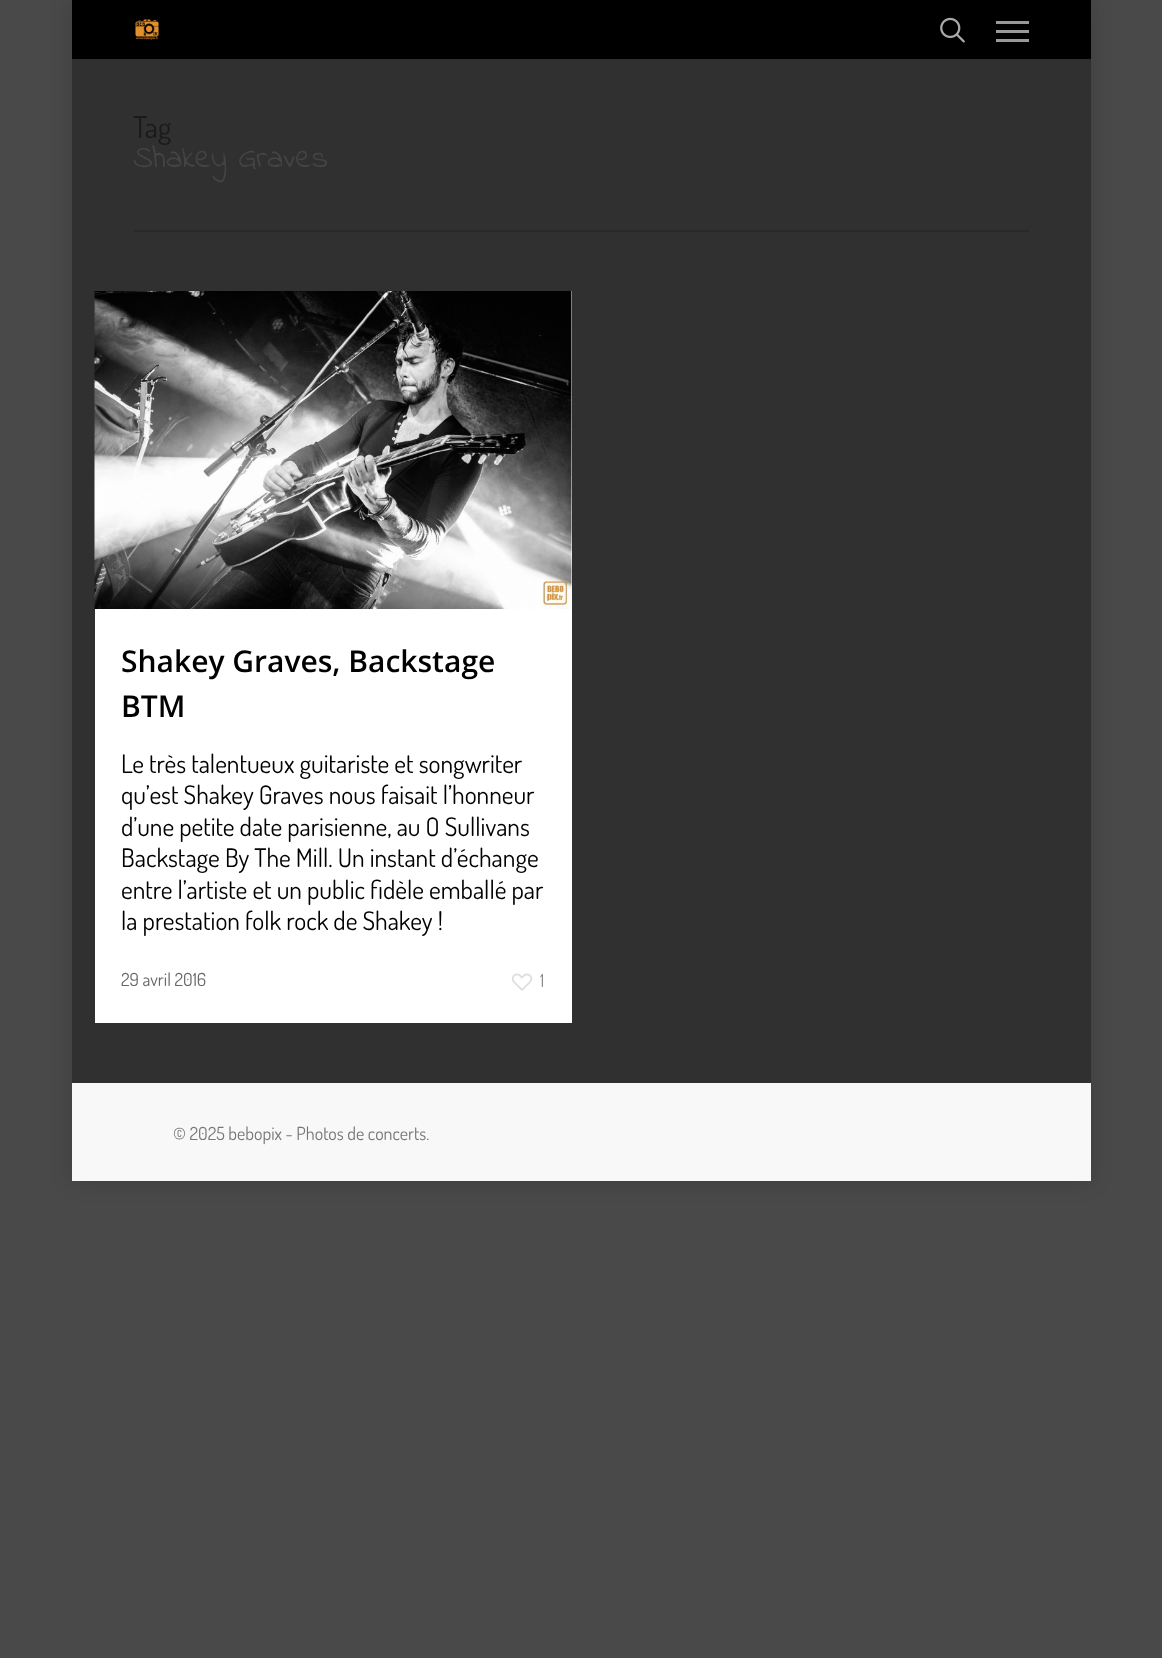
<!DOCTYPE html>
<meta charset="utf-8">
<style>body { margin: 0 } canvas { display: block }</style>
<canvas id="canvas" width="1162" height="1658"></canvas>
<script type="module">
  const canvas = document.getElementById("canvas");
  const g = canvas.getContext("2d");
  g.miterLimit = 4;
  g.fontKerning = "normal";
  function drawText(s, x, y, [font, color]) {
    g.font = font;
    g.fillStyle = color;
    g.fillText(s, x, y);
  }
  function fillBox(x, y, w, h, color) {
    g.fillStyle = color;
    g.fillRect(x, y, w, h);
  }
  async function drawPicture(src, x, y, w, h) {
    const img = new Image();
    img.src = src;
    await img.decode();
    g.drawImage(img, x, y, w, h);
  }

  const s1 = ["30px Dosis", "#1A1A1A"];
  const s2 = ["31.5px Indie Flower", "#444444"];
  const s3 = ["600 30px Open Sans", "#000000"];
  const s4 = ["25.5px Dosis", "#000000"];
  const s5 = ["18px Dosis", "#676767"];
  const s6 = ["18px Dosis", "#888888"];
  const s7 = ["18px Dosis", "#777777"];

  fillBox(0, 0, 1162, 1658, "#494949");
  g.fillStyle = "rgba(0, 0, 0, 0.15)";
  g.filter = "blur(11px)";
  g.beginPath();
  g.rect(72, 0, 1019, 1181);
  g.fill();
  g.filter = "none";
  fillBox(72, 1083, 1019, 98, "#F8F8F8");
  fillBox(72, 0, 1019, 59, "#000000");
  await drawPicture("pic1.png", 135, 19, 24, 21);
  await drawPicture("pic2.png", 940, 17, 25, 26);
  fillBox(996, 21, 33, 3, "#999999");
  fillBox(996, 39, 33, 3, "#999999");
  fillBox(996, 30, 33, 3, "#999999");
  fillBox(72, 59, 1019, 1024, "#303030");
  fillBox(134, 230, 895, 2, "#292929");
  drawText("Tag", 133, 138, s1);
  drawText("Shakey Graves", 133, 167, s2);
  fillBox(95, 291, 477, 732, "#FFFFFF");
  await drawPicture("pic3.png", 94, 291, 478, 318);
  drawText("Shakey Graves, Backstage", 121, 672, s3);
  drawText("BTM", 121, 717, s3);
  drawText("Le très talentueux guitariste et songwriter", 121, 773, s4);
  drawText("qu’est Shakey Graves nous faisait l’honneur", 121, 804, s4);
  drawText("d’une petite date parisienne, au O Sullivans", 121, 836, s4);
  drawText("Backstage By The Mill. Un instant d’échange", 121, 867, s4);
  drawText("entre l’artiste et un public fidèle emballé par", 121, 899, s4);
  drawText("la prestation folk rock de Shakey !", 121, 930, s4);
  drawText("29 avril 2016", 121, 986, s5);
  await drawPicture("pic4.png", 511, 973, 22, 18);
  drawText("1", 540, 987, s6);
  drawText("© 2025 bebopix - Photos de concerts.", 173, 1140, s7);
</script>
